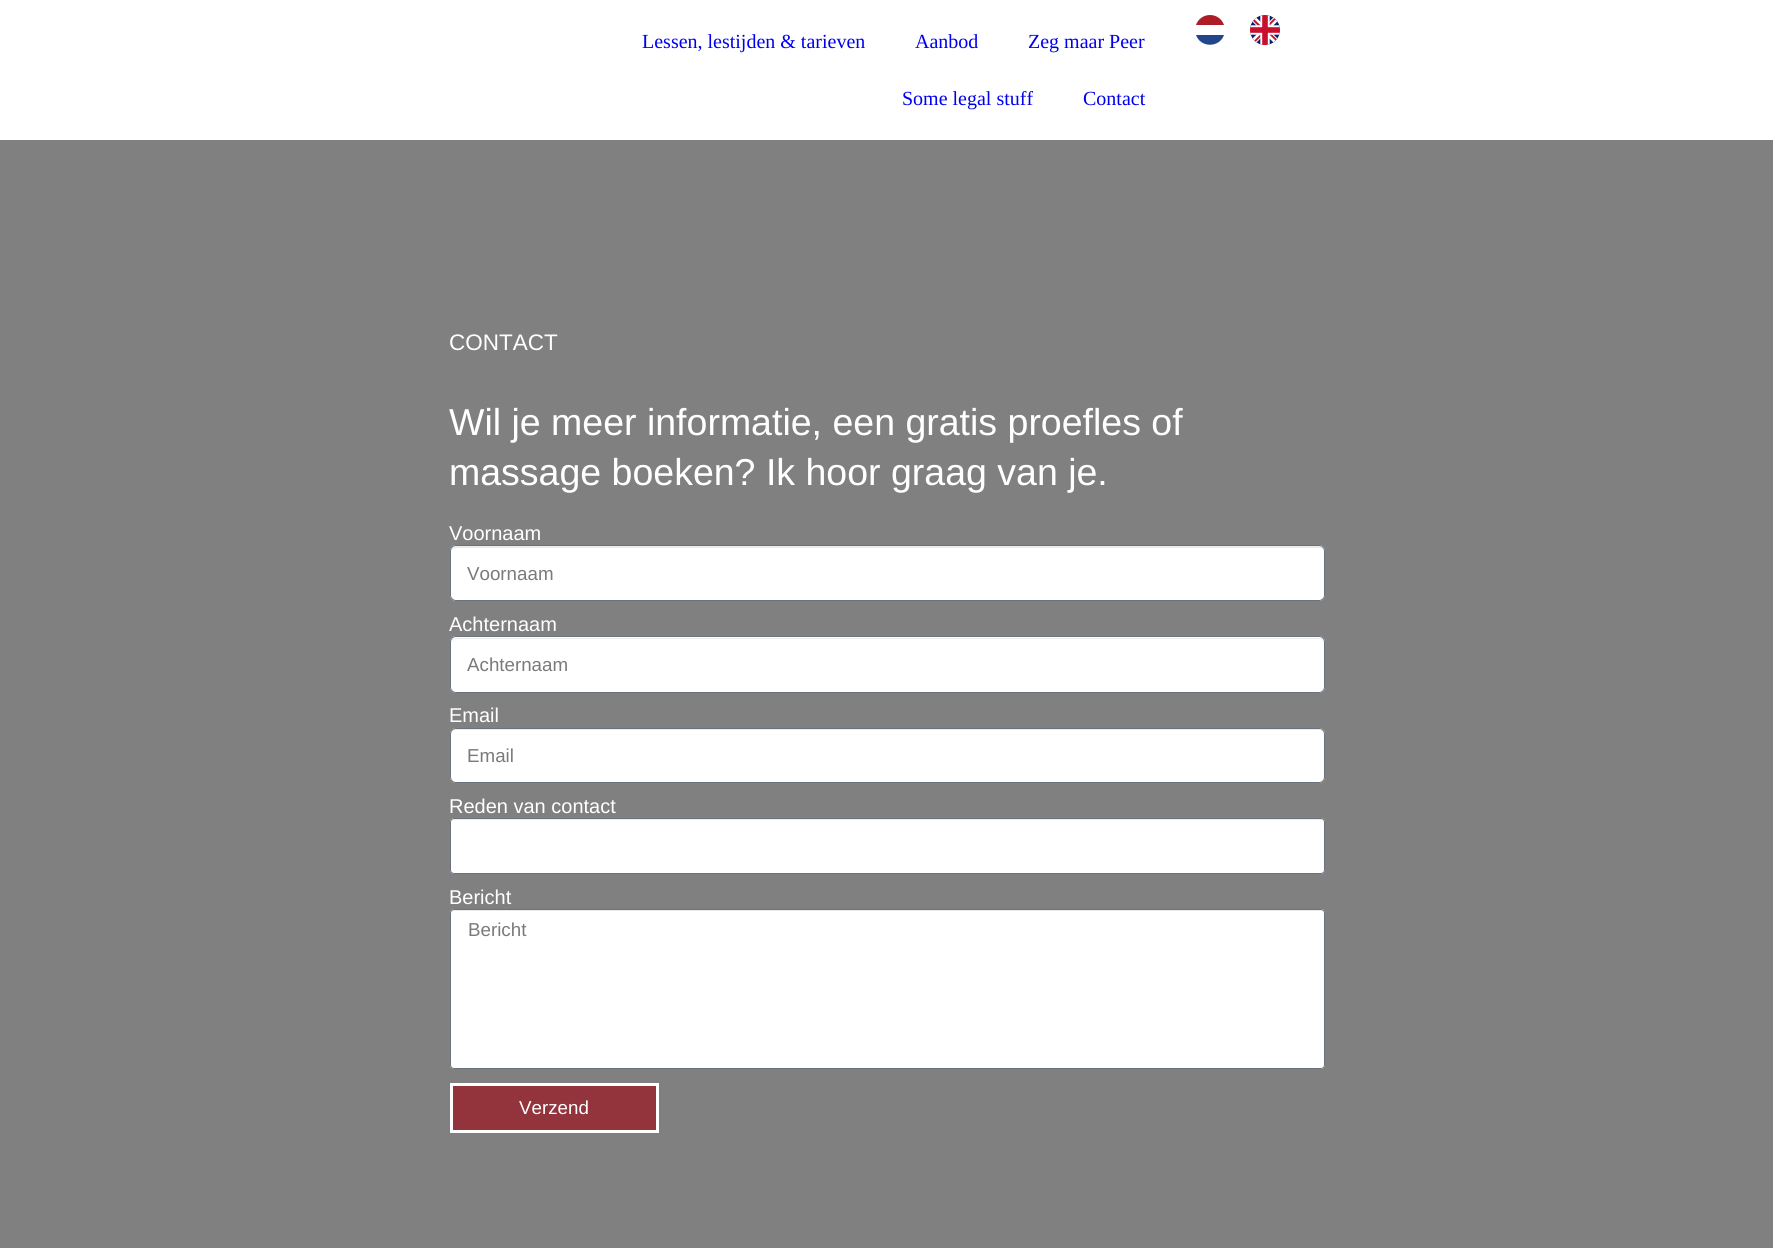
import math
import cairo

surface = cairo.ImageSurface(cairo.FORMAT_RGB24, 1773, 1248)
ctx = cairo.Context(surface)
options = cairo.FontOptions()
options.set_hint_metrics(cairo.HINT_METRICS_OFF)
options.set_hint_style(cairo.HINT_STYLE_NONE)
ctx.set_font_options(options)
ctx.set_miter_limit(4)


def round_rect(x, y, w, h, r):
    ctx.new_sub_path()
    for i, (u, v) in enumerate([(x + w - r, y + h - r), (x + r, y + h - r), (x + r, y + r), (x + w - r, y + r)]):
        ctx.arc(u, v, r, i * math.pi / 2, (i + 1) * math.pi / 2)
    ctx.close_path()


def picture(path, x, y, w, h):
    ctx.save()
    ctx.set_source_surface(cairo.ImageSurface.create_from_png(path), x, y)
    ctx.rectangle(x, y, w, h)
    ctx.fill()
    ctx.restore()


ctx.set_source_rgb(1, 1, 1)
ctx.paint()
ctx.set_source_rgb(0.682, 0.11, 0.157)
ctx.new_path()
ctx.move_to(1210, 15)
ctx.curve_to(1216.5, 15, 1222, 19, 1224, 25)
ctx.line_to(1196, 25)
ctx.curve_to(1198, 19, 1203.5, 15, 1210, 15)
ctx.close_path()
ctx.fill()
ctx.set_source_rgb(0.129, 0.275, 0.545)
ctx.new_path()
ctx.move_to(1224, 35)
ctx.curve_to(1219.5, 48, 1200.5, 48, 1196, 35)
ctx.close_path()
ctx.fill()
picture("img1.png", 1250, 15, 30, 30)
ctx.select_font_face("Liberation Serif")
ctx.set_font_size(20)
ctx.set_source_rgb(0, 0, 0.933)
ctx.move_to(642, 48)
ctx.show_text("Lessen, lestijden & tarieven")
ctx.move_to(915, 48)
ctx.show_text("Aanbod")
ctx.move_to(1028, 48)
ctx.show_text("Zeg maar Peer")
ctx.move_to(902, 105)
ctx.show_text("Some legal stuff")
ctx.move_to(1083, 105)
ctx.show_text("Contact")
ctx.set_source_rgb(0.502, 0.502, 0.502)
ctx.rectangle(0, 140, 1773, 1108)
ctx.fill()
ctx.select_font_face("Liberation Sans")
ctx.set_font_size(22.5)
ctx.set_source_rgb(1, 1, 1)
ctx.move_to(449, 350)
ctx.show_text("CONTACT")
ctx.set_font_size(37.5)
ctx.move_to(449, 435)
ctx.show_text("Wil je meer informatie, een gratis proefles of")
ctx.move_to(449, 485)
ctx.show_text("massage boeken? Ik hoor graag van je.")
ctx.set_font_size(20)
ctx.move_to(449, 540)
ctx.show_text("Voornaam")
round_rect(450, 545, 875, 56, 6)
ctx.fill()
ctx.set_source_rgb(0.922, 0.922, 0.922)
ctx.new_path()
ctx.move_to(456, 548)
ctx.line_to(1319, 548)
ctx.curve_to(1322, 548, 1324, 550, 1324, 552)
ctx.line_to(1324, 551)
ctx.curve_to(1324, 548, 1322, 546, 1319, 546)
ctx.line_to(456, 546)
ctx.curve_to(453, 546, 451, 548, 451, 551)
ctx.line_to(451, 552)
ctx.curve_to(451, 550, 453, 548, 456, 548)
ctx.close_path()
ctx.fill()
round_rect(450.5, 545.5, 874, 55, 5.5)
ctx.set_source_rgb(0.412, 0.447, 0.49)
ctx.set_line_width(1)
ctx.stroke()
ctx.set_font_size(18.75)
ctx.set_source_rgb(0.475, 0.478, 0.486)
ctx.move_to(467, 580)
ctx.show_text("Voornaam")
ctx.set_font_size(20)
ctx.set_source_rgb(1, 1, 1)
ctx.move_to(449, 631)
ctx.show_text("Achternaam")
round_rect(450, 636, 875, 57, 6)
ctx.fill()
ctx.set_source_rgb(0.922, 0.922, 0.922)
ctx.new_path()
ctx.move_to(456, 639)
ctx.line_to(1319, 639)
ctx.curve_to(1322, 639, 1324, 641, 1324, 644)
ctx.line_to(1324, 643)
ctx.curve_to(1324, 640, 1322, 638, 1319, 638)
ctx.line_to(456, 638)
ctx.curve_to(453, 638, 451, 640, 451, 643)
ctx.line_to(451, 644)
ctx.curve_to(451, 641, 453, 639, 456, 639)
ctx.close_path()
ctx.fill()
round_rect(450.5, 636.5, 874, 56, 5.5)
ctx.set_source_rgb(0.412, 0.447, 0.49)
ctx.stroke()
ctx.set_font_size(18.75)
ctx.set_source_rgb(0.475, 0.478, 0.486)
ctx.move_to(467, 671)
ctx.show_text("Achternaam")
ctx.set_font_size(20)
ctx.set_source_rgb(1, 1, 1)
ctx.move_to(449, 722)
ctx.show_text("Email")
round_rect(450, 728, 875, 55, 6)
ctx.fill()
ctx.set_source_rgb(0.922, 0.922, 0.922)
ctx.new_path()
ctx.move_to(456, 730)
ctx.line_to(1319, 730)
ctx.curve_to(1322, 730, 1324, 732, 1324, 735)
ctx.line_to(1324, 734)
ctx.curve_to(1324, 731, 1322, 729, 1319, 729)
ctx.line_to(456, 729)
ctx.curve_to(453, 729, 451, 731, 451, 734)
ctx.line_to(451, 735)
ctx.curve_to(451, 732, 453, 730, 456, 730)
ctx.close_path()
ctx.fill()
round_rect(450.5, 728.5, 874, 54, 5.5)
ctx.set_source_rgb(0.412, 0.447, 0.49)
ctx.stroke()
ctx.set_font_size(18.75)
ctx.set_source_rgb(0.475, 0.478, 0.486)
ctx.move_to(467, 762)
ctx.show_text("Email")
ctx.set_font_size(20)
ctx.set_source_rgb(1, 1, 1)
ctx.move_to(449, 813)
ctx.show_text("Reden van contact")
round_rect(450, 818, 875, 56, 4)
ctx.fill()
ctx.set_source_rgb(0.922, 0.922, 0.922)
ctx.new_path()
ctx.move_to(454, 820)
ctx.line_to(1321, 820)
ctx.curve_to(1323, 820, 1324, 821, 1324, 822)
ctx.curve_to(1324, 820, 1323, 819, 1322, 819)
ctx.line_to(454, 819)
ctx.curve_to(452, 819, 451, 820, 451, 822)
ctx.curve_to(451, 821, 452, 820, 454, 820)
ctx.close_path()
ctx.fill()
round_rect(450.5, 818.5, 874, 55, 3.5)
ctx.set_source_rgb(0.412, 0.447, 0.49)
ctx.stroke()
ctx.set_source_rgb(1, 1, 1)
ctx.move_to(449, 904)
ctx.show_text("Bericht")
round_rect(450, 909, 875, 160, 4)
ctx.fill()
ctx.set_source_rgb(0.922, 0.922, 0.922)
ctx.new_path()
ctx.move_to(454, 911)
ctx.line_to(1321, 911)
ctx.curve_to(1323, 911, 1324, 912, 1324, 914)
ctx.line_to(1324, 912)
ctx.curve_to(1324, 911, 1323, 910, 1322, 910)
ctx.line_to(454, 910)
ctx.curve_to(452, 910, 451, 911, 451, 912)
ctx.line_to(451, 914)
ctx.curve_to(451, 912, 452, 911, 454, 911)
ctx.close_path()
ctx.fill()
round_rect(450.5, 909.5, 874, 159, 3.5)
ctx.set_source_rgb(0.412, 0.447, 0.49)
ctx.stroke()
ctx.set_font_size(18.75)
ctx.set_source_rgb(0.475, 0.478, 0.486)
ctx.move_to(468, 936)
ctx.show_text("Bericht")
ctx.set_source_rgb(0.576, 0.204, 0.239)
ctx.rectangle(453, 1086, 203, 44)
ctx.fill()
ctx.rectangle(451.5, 1084.5, 206, 47)
ctx.set_source_rgb(1, 1, 1)
ctx.set_line_width(3)
ctx.stroke()
ctx.move_to(519, 1114)
ctx.show_text("Verzend")
surface.write_to_png("page.png")
